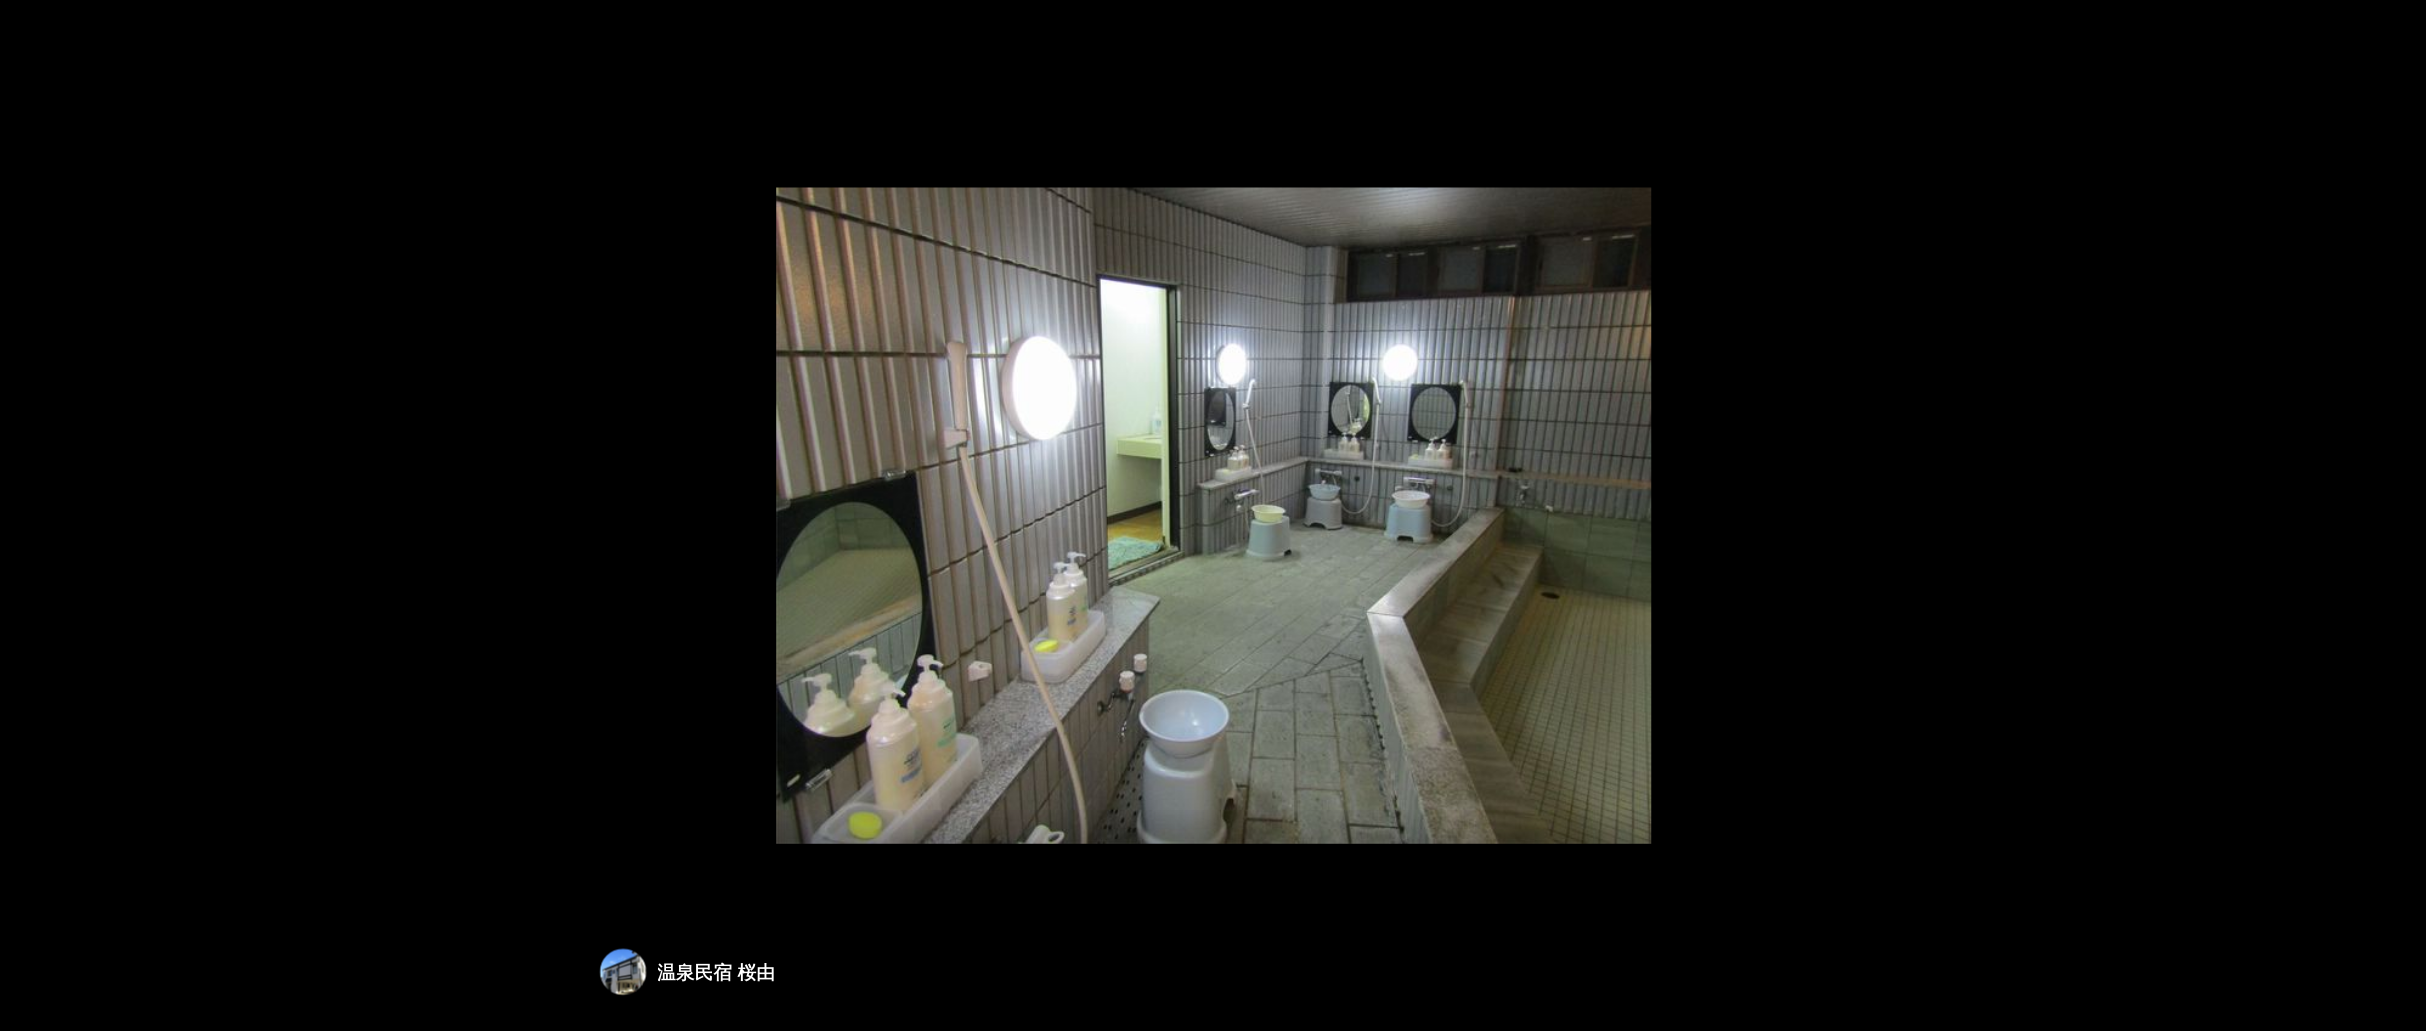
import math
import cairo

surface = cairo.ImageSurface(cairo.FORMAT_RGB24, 2426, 1031)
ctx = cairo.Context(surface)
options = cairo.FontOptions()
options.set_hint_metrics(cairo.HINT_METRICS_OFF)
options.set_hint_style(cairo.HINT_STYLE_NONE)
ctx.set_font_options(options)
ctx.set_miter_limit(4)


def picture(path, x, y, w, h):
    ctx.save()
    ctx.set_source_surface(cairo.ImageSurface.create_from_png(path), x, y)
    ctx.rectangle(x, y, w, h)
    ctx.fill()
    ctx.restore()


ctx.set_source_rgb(0, 0, 0)
ctx.paint()
picture("img1.png", 776, 187, 876, 657)
gradient = cairo.LinearGradient(1214, 806, 1214, 1031)
gradient.add_color_stop_rgba(0, 0, 0, 0, 0)
gradient.add_color_stop_rgba(0.37, 0, 0, 0, 0.4)
gradient.add_color_stop_rgba(1, 0, 0, 0, 0.4)
ctx.set_source(gradient)
ctx.rectangle(776, 810, 876, 34)
ctx.fill()
picture("img2.png", 599, 948, 48, 48)
ctx.save()
ctx.rectangle(658, 961, 1171, 22)
ctx.clip()
ctx.select_font_face("WenQuanYi Zen Hei", cairo.FONT_SLANT_NORMAL, cairo.FONT_WEIGHT_BOLD)
ctx.set_font_size(18.75)
ctx.set_source_rgb(1, 1, 1)
ctx.move_to(657, 979)
ctx.show_text("温泉民宿 桜由")
ctx.restore()
surface.write_to_png("page.png")
